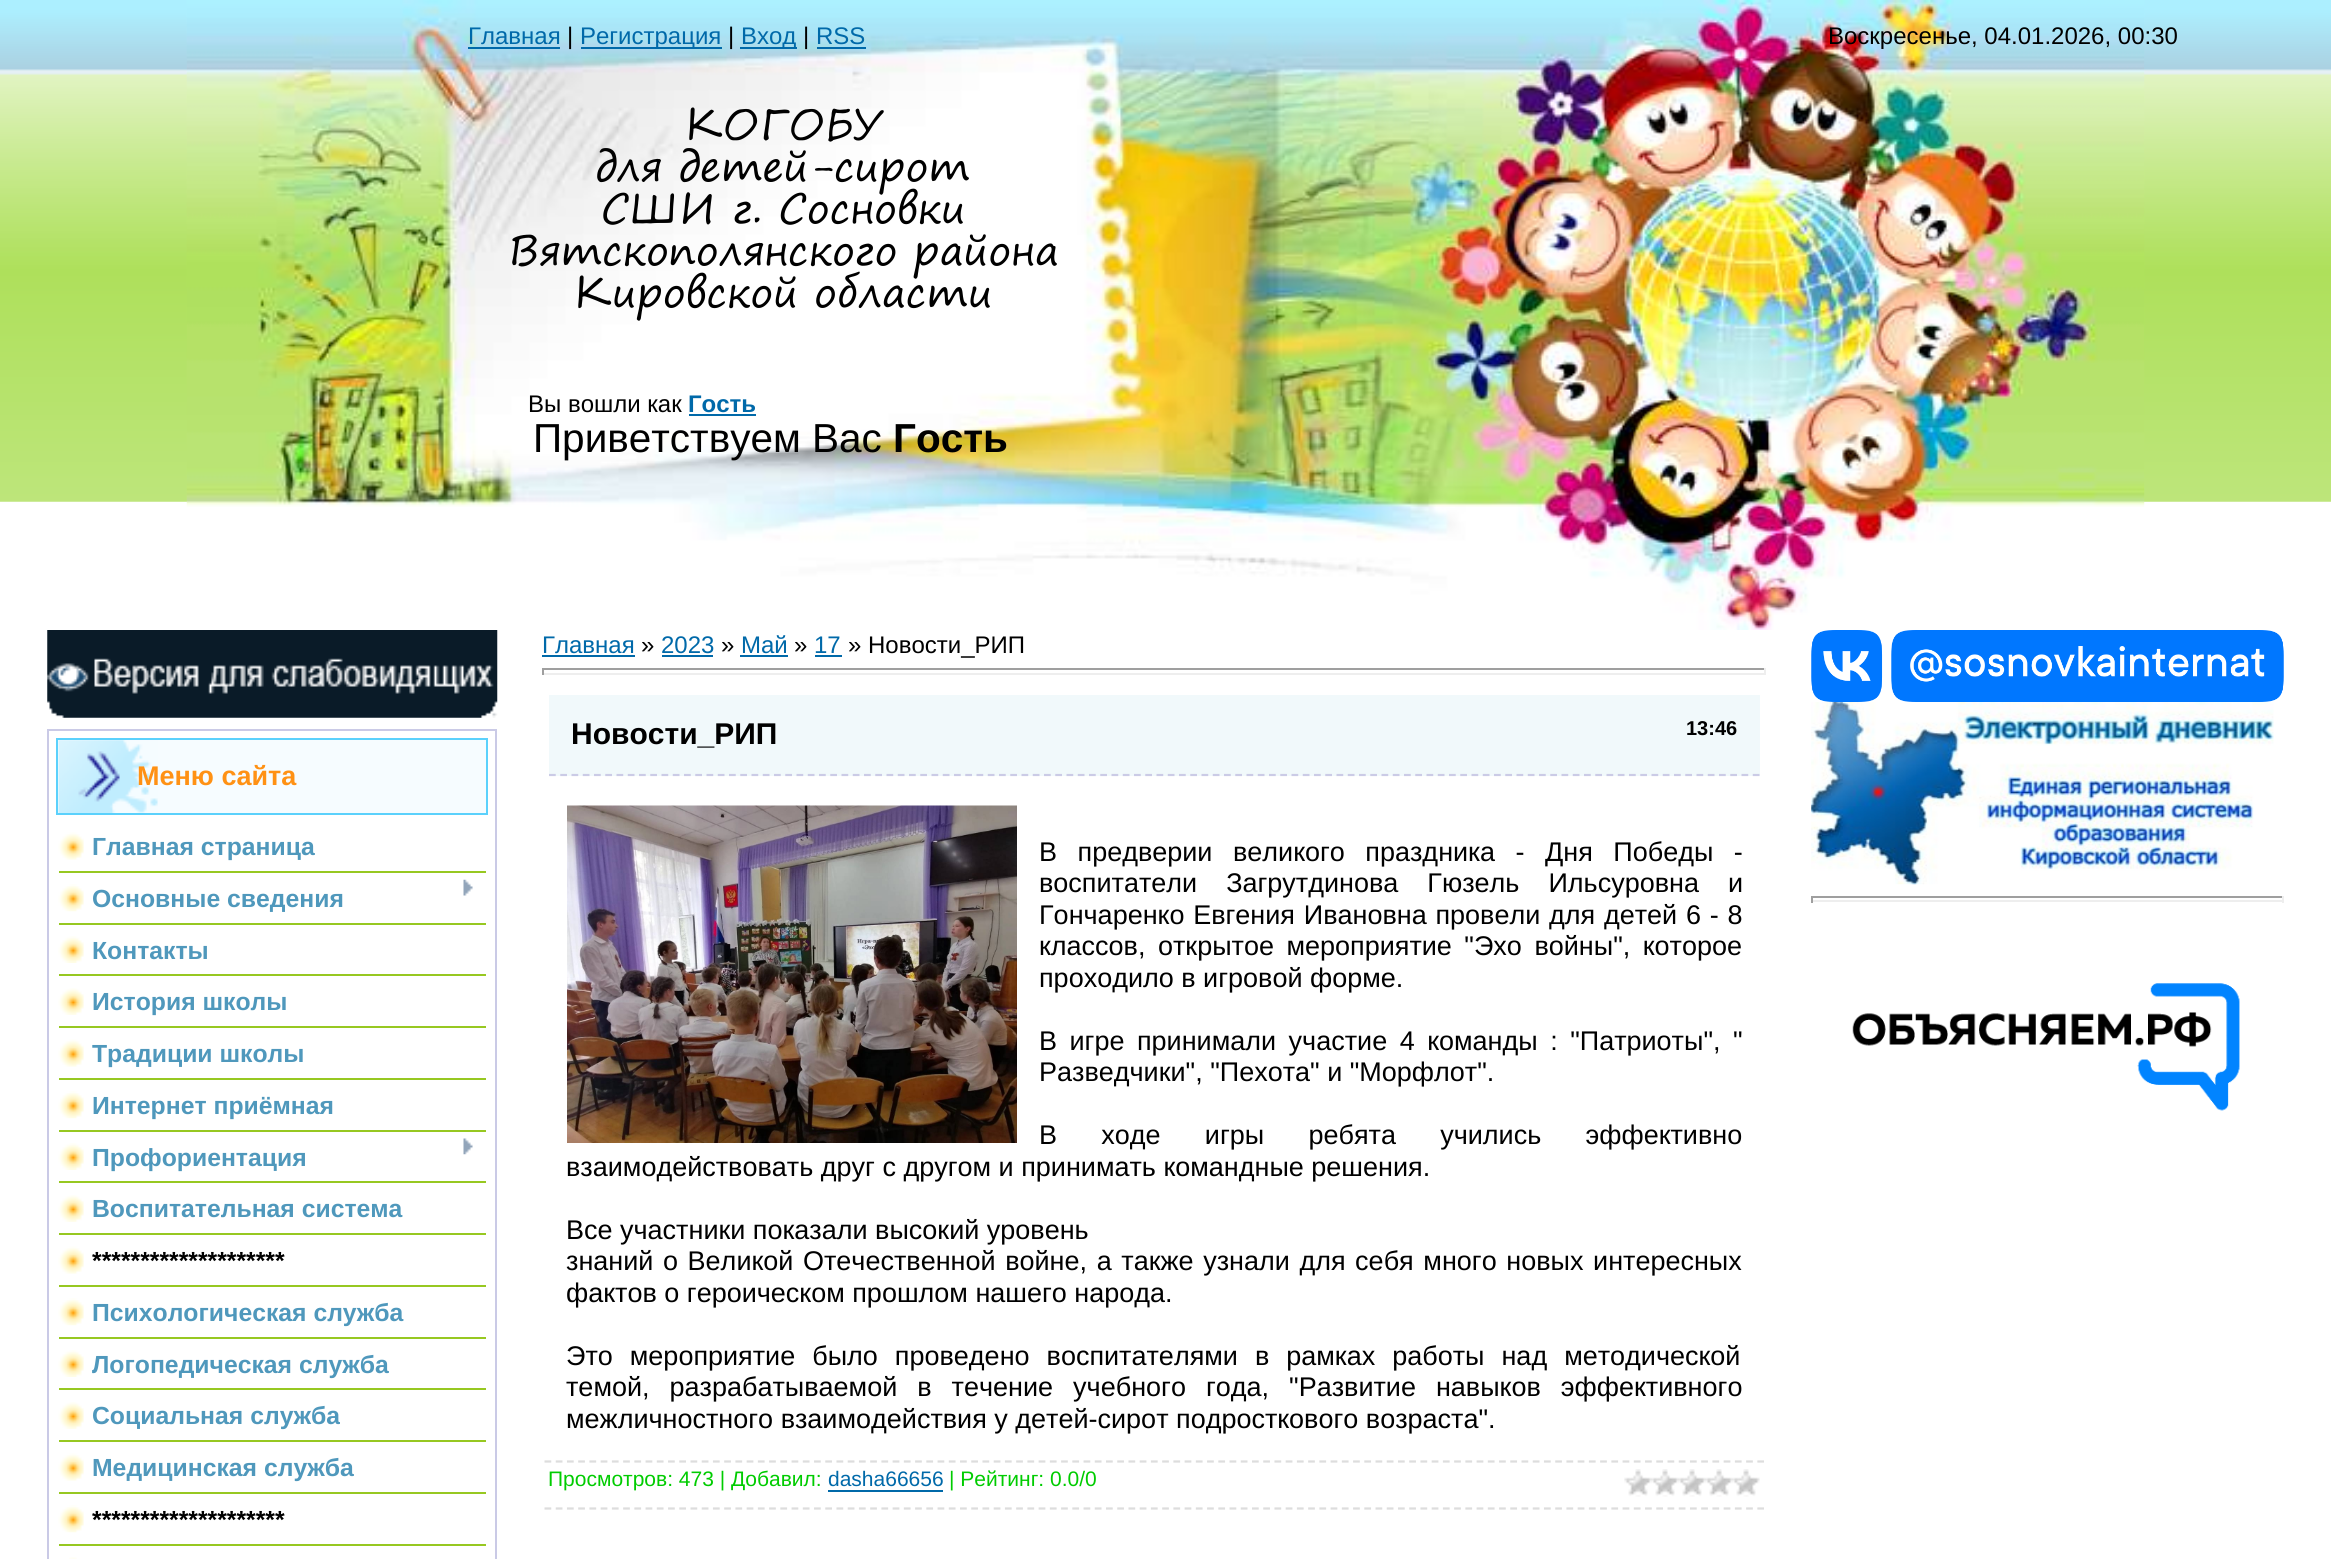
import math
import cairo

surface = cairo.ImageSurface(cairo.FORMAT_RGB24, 2331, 1559)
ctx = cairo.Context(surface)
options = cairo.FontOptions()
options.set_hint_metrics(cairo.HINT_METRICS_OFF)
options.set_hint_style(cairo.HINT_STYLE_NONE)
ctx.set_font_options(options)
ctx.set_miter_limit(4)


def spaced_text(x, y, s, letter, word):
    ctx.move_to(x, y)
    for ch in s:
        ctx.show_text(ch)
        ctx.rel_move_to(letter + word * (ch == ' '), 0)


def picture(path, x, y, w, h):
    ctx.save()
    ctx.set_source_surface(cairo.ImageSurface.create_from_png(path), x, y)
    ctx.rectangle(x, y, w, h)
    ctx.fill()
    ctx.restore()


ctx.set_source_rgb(1, 1, 1)
ctx.paint()
picture("img1.png", 0, 0, 2331, 502)
picture("img2.png", 186, 0, 1959, 630)
ctx.select_font_face("Liberation Sans")
ctx.set_font_size(24)
ctx.set_source_rgb(0, 0.412, 0.663)
ctx.move_to(468, 44)
ctx.show_text("Главная")
ctx.rectangle(468, 47, 92, 2)
ctx.fill()
ctx.set_source_rgb(0, 0, 0)
ctx.move_to(567, 44)
ctx.show_text("|")
ctx.set_source_rgb(0, 0.412, 0.663)
ctx.rectangle(581, 47, 141, 2)
ctx.fill()
ctx.move_to(580, 44)
ctx.show_text("Регистрация")
ctx.set_source_rgb(0, 0, 0)
ctx.move_to(728, 44)
ctx.show_text("|")
ctx.set_source_rgb(0, 0.412, 0.663)
ctx.rectangle(740, 47, 57, 2)
ctx.fill()
ctx.move_to(741, 44)
ctx.show_text("Вход")
ctx.set_source_rgb(0, 0, 0)
ctx.move_to(803, 44)
ctx.show_text("|")
ctx.set_source_rgb(0, 0.412, 0.663)
ctx.move_to(816, 44)
ctx.show_text("RSS")
ctx.rectangle(817, 47, 49, 2)
ctx.fill()
ctx.set_source_rgb(0, 0, 0)
ctx.move_to(1828, 44)
ctx.show_text("Воскресенье, 04.01.2026, 00:30")
ctx.select_font_face("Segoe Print")
ctx.set_font_size(40.5)
ctx.move_to(684, 139)
ctx.show_text("КОГОБУ")
ctx.move_to(595, 181)
ctx.show_text("для детей-сирот")
ctx.move_to(601, 223)
ctx.show_text("СШИ г. Сосновки")
ctx.move_to(508, 265)
ctx.show_text("Вятскополянского района")
ctx.move_to(573, 307)
ctx.show_text("Кировской области")
ctx.select_font_face("Liberation Sans")
ctx.set_font_size(24)
ctx.move_to(528, 412)
ctx.show_text("Вы вошли как")
ctx.select_font_face("Liberation Sans", cairo.FONT_SLANT_NORMAL, cairo.FONT_WEIGHT_BOLD)
ctx.set_source_rgb(0, 0.412, 0.663)
ctx.move_to(688, 412)
ctx.show_text("Гость")
ctx.rectangle(689, 414, 67, 2)
ctx.fill()
ctx.select_font_face("Liberation Sans")
ctx.set_font_size(40.5)
ctx.set_source_rgb(0, 0, 0)
ctx.move_to(533, 452)
ctx.show_text("Приветствуем Вас")
ctx.select_font_face("Liberation Sans", cairo.FONT_SLANT_NORMAL, cairo.FONT_WEIGHT_BOLD)
ctx.move_to(893, 452)
ctx.show_text("Гость")
picture("img3.png", 47, 630, 451, 88)
ctx.rectangle(48, 730, 448, 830)
ctx.set_source_rgb(0.792, 0.792, 0.902)
ctx.stroke()
ctx.set_source_rgb(0.961, 0.988, 1)
ctx.rectangle(58, 740, 428, 73)
ctx.fill()
picture("img4.png", 58, 740, 100, 73)
ctx.rectangle(57, 739, 430, 75)
ctx.set_source_rgb(0.357, 0.82, 0.988)
ctx.stroke()
ctx.set_font_size(27)
ctx.set_source_rgb(1, 0.569, 0.082)
ctx.move_to(137, 785)
ctx.show_text("Меню сайта")
picture("img5.png", 58, 832, 26, 28)
ctx.set_source_rgb(0.592, 0.784, 0.129)
ctx.rectangle(59, 871, 427, 2)
ctx.fill()
ctx.set_font_size(24.75)
ctx.set_source_rgb(0.31, 0.596, 0.737)
ctx.move_to(92, 855)
ctx.show_text("Главная страница")
picture("img6.png", 58, 884, 26, 28)
ctx.set_source_rgb(0.592, 0.784, 0.129)
ctx.rectangle(59, 923, 427, 2)
ctx.fill()
ctx.set_source_rgb(0.31, 0.596, 0.737)
ctx.move_to(92, 907)
ctx.show_text("Основные сведения")
picture("img7.png", 463, 879, 10, 17)
picture("img8.png", 58, 936, 26, 27)
ctx.set_source_rgb(0.592, 0.784, 0.129)
ctx.rectangle(59, 974, 427, 2)
ctx.fill()
ctx.set_source_rgb(0.31, 0.596, 0.737)
ctx.move_to(92, 959)
ctx.show_text("Контакты")
picture("img9.png", 58, 988, 26, 27)
ctx.set_source_rgb(0.592, 0.784, 0.129)
ctx.rectangle(59, 1026, 427, 2)
ctx.fill()
ctx.set_source_rgb(0.31, 0.596, 0.737)
ctx.move_to(92, 1010)
ctx.show_text("История школы")
picture("img10.png", 58, 1039, 26, 28)
ctx.set_source_rgb(0.592, 0.784, 0.129)
ctx.rectangle(59, 1078, 427, 2)
ctx.fill()
ctx.set_source_rgb(0.31, 0.596, 0.737)
ctx.move_to(92, 1062)
ctx.show_text("Традиции школы")
picture("img6.png", 58, 1091, 26, 28)
ctx.set_source_rgb(0.592, 0.784, 0.129)
ctx.rectangle(59, 1130, 427, 2)
ctx.fill()
ctx.set_source_rgb(0.31, 0.596, 0.737)
ctx.move_to(92, 1114)
ctx.show_text("Интернет приёмная")
picture("img11.png", 58, 1143, 26, 27)
ctx.set_source_rgb(0.592, 0.784, 0.129)
ctx.rectangle(59, 1181, 427, 2)
ctx.fill()
ctx.set_source_rgb(0.31, 0.596, 0.737)
ctx.move_to(92, 1166)
ctx.show_text("Профориентация")
picture("img12.png", 463, 1138, 10, 17)
picture("img9.png", 58, 1195, 26, 27)
ctx.set_source_rgb(0.592, 0.784, 0.129)
ctx.rectangle(59, 1233, 427, 2)
ctx.fill()
ctx.set_source_rgb(0.31, 0.596, 0.737)
ctx.move_to(92, 1217)
ctx.show_text("Воспитательная система")
picture("img10.png", 58, 1246, 26, 28)
ctx.set_source_rgb(0.592, 0.784, 0.129)
ctx.rectangle(59, 1285, 427, 2)
ctx.fill()
ctx.set_source_rgb(0, 0, 0)
ctx.move_to(92, 1269)
ctx.show_text("********************")
picture("img6.png", 58, 1298, 26, 28)
ctx.set_source_rgb(0.592, 0.784, 0.129)
ctx.rectangle(59, 1337, 427, 2)
ctx.fill()
ctx.set_source_rgb(0.31, 0.596, 0.737)
ctx.move_to(92, 1321)
ctx.show_text("Психологическая служба")
picture("img8.png", 58, 1350, 26, 27)
ctx.set_source_rgb(0.592, 0.784, 0.129)
ctx.rectangle(59, 1388, 427, 2)
ctx.fill()
ctx.set_source_rgb(0.31, 0.596, 0.737)
ctx.move_to(92, 1373)
ctx.show_text("Логопедическая служба")
picture("img9.png", 58, 1402, 26, 27)
ctx.set_source_rgb(0.592, 0.784, 0.129)
ctx.rectangle(59, 1440, 427, 2)
ctx.fill()
ctx.set_source_rgb(0.31, 0.596, 0.737)
ctx.move_to(92, 1424)
ctx.show_text("Социальная служба")
picture("img10.png", 58, 1453, 26, 28)
ctx.set_source_rgb(0.592, 0.784, 0.129)
ctx.rectangle(59, 1492, 427, 2)
ctx.fill()
ctx.set_source_rgb(0.31, 0.596, 0.737)
ctx.move_to(92, 1476)
ctx.show_text("Медицинская служба")
picture("img6.png", 58, 1505, 26, 28)
ctx.set_source_rgb(0.592, 0.784, 0.129)
ctx.rectangle(59, 1544, 427, 2)
ctx.fill()
ctx.set_source_rgb(0, 0, 0)
ctx.move_to(92, 1528)
ctx.show_text("********************")
picture("img13.png", 69, 1557, 8, 2)
ctx.select_font_face("Liberation Sans")
ctx.set_font_size(24)
ctx.set_source_rgb(0, 0.412, 0.663)
ctx.move_to(542, 653)
ctx.show_text("Главная")
ctx.rectangle(542, 655, 93, 2)
ctx.fill()
ctx.set_source_rgb(0, 0, 0)
ctx.move_to(641, 653)
ctx.show_text("»")
ctx.set_source_rgb(0, 0.412, 0.663)
ctx.move_to(661, 653)
ctx.show_text("2023")
ctx.rectangle(662, 655, 51, 2)
ctx.fill()
ctx.set_source_rgb(0, 0, 0)
ctx.move_to(721, 653)
ctx.show_text("»")
ctx.set_source_rgb(0, 0.412, 0.663)
ctx.move_to(741, 653)
ctx.show_text("Май")
ctx.rectangle(740, 655, 48, 2)
ctx.fill()
ctx.set_source_rgb(0, 0, 0)
ctx.move_to(794, 653)
ctx.show_text("»")
ctx.set_source_rgb(0, 0.412, 0.663)
ctx.move_to(814, 653)
ctx.show_text("17")
ctx.rectangle(815, 655, 27, 2)
ctx.fill()
ctx.set_source_rgb(0, 0, 0)
ctx.move_to(848, 653)
ctx.show_text("» Новости_РИП")
ctx.set_source_rgb(0.624, 0.624, 0.624)
ctx.rectangle(542, 668, 1224, 2)
ctx.fill()
ctx.set_source_rgb(0.933, 0.933, 0.933)
ctx.rectangle(1764, 668, 2, 7)
ctx.fill()
ctx.rectangle(542, 673, 1224, 2)
ctx.fill()
ctx.set_source_rgb(0.624, 0.624, 0.624)
ctx.rectangle(542, 668, 2, 7)
ctx.fill()
ctx.set_source_rgb(0.945, 0.973, 0.984)
ctx.rectangle(549, 695, 1211, 81)
ctx.fill()
ctx.new_path()
ctx.move_to(549, 775)
ctx.line_to(1759.5, 775)
ctx.set_source_rgb(0.796, 0.796, 0.902)
ctx.set_line_width(2.2)
ctx.set_dash([6.75, 4.5])
ctx.stroke()
ctx.select_font_face("Liberation Sans", cairo.FONT_SLANT_NORMAL, cairo.FONT_WEIGHT_BOLD)
ctx.set_font_size(30)
ctx.set_source_rgb(0, 0, 0)
ctx.move_to(571, 744)
ctx.show_text("Новости_РИП")
ctx.set_font_size(20)
ctx.move_to(1686, 735)
ctx.show_text("13:46")
picture("img14.png", 567, 805, 450, 338)
ctx.select_font_face("Liberation Sans")
ctx.set_font_size(27)
spaced_text(1039, 861, "В предверии великого праздника - Дня Победы -", 0, 13)
spaced_text(1039, 892, "воспитатели Загрутдинова Гюзель Ильсуровна и", 0, 21.5)
spaced_text(1039, 924, "Гончаренко Евгения Ивановна провели для детей 6 - 8", 0, 1.25)
spaced_text(1039, 955, "классов, открытое мероприятие \"Эхо войны\", которое", 0, 5)
ctx.move_to(1039, 987)
ctx.show_text("проходило в игровой форме.")
spaced_text(1039, 1050, "В игре принимали участие 4 команды : \"Патриоты\", \"", 0, 5)
ctx.move_to(1039, 1081)
ctx.show_text("Разведчики\", \"Пехота\" и \"Морфлот\".")
spaced_text(1039, 1144, "В ходе игры ребята учились эффективно", 0, 36.75)
ctx.move_to(566, 1176)
ctx.show_text("взаимодействовать друг с другом и принимать командные решения.")
ctx.move_to(566, 1239)
ctx.show_text("Все участники показали высокий уровень")
spaced_text(566, 1270, "знаний о Великой Отечественной войне, а также узнали для себя много новых интересных", 0, 2.1)
ctx.move_to(566, 1302)
ctx.show_text("фактов о героическом прошлом нашего народа.")
spaced_text(566, 1365, "Это мероприятие было проведено воспитателями в рамках работы над методической", 0, 9.5)
spaced_text(566, 1396, "темой, разрабатываемой в течение учебного года, \"Развитие навыков эффективного", 0, 12.5)
ctx.move_to(566, 1428)
ctx.show_text("межличностного взаимодействия у детей-сирот подросткового возраста\".")
ctx.new_path()
ctx.move_to(544.5, 1461.5)
ctx.line_to(1764, 1461.5)
ctx.set_source_rgb(0.867, 0.867, 0.867)
ctx.set_dash([6.75, 4.48])
ctx.stroke()
ctx.new_path()
ctx.move_to(544.5, 1508.5)
ctx.line_to(1764, 1508.5)
ctx.stroke()
ctx.set_font_size(21)
ctx.set_source_rgb(0, 0.8, 0)
ctx.move_to(548, 1486)
ctx.show_text("Просмотров: 473 | Добавил:")
ctx.set_source_rgb(0, 0.412, 0.663)
ctx.move_to(828, 1486)
ctx.show_text("dasha66656")
ctx.rectangle(828, 1490, 115, 2)
ctx.fill()
ctx.set_source_rgb(0, 0.8, 0)
ctx.move_to(949, 1486)
ctx.show_text("| Рейтинг: 0.0/0")
picture("img15.png", 1624, 1469, 136, 28)
picture("img16.png", 1811, 630, 473, 72)
picture("img17.png", 1811, 702, 463, 183)
ctx.set_source_rgb(0.624, 0.624, 0.624)
ctx.rectangle(1811, 896, 473, 2)
ctx.fill()
ctx.set_source_rgb(0.933, 0.933, 0.933)
ctx.rectangle(2282, 896, 2, 7)
ctx.fill()
ctx.rectangle(1811, 900, 473, 2)
ctx.fill()
ctx.set_source_rgb(0.624, 0.624, 0.624)
ctx.rectangle(1811, 896, 2, 7)
ctx.fill()
picture("img18.png", 1852, 983, 388, 128)
surface.write_to_png("page.png")
